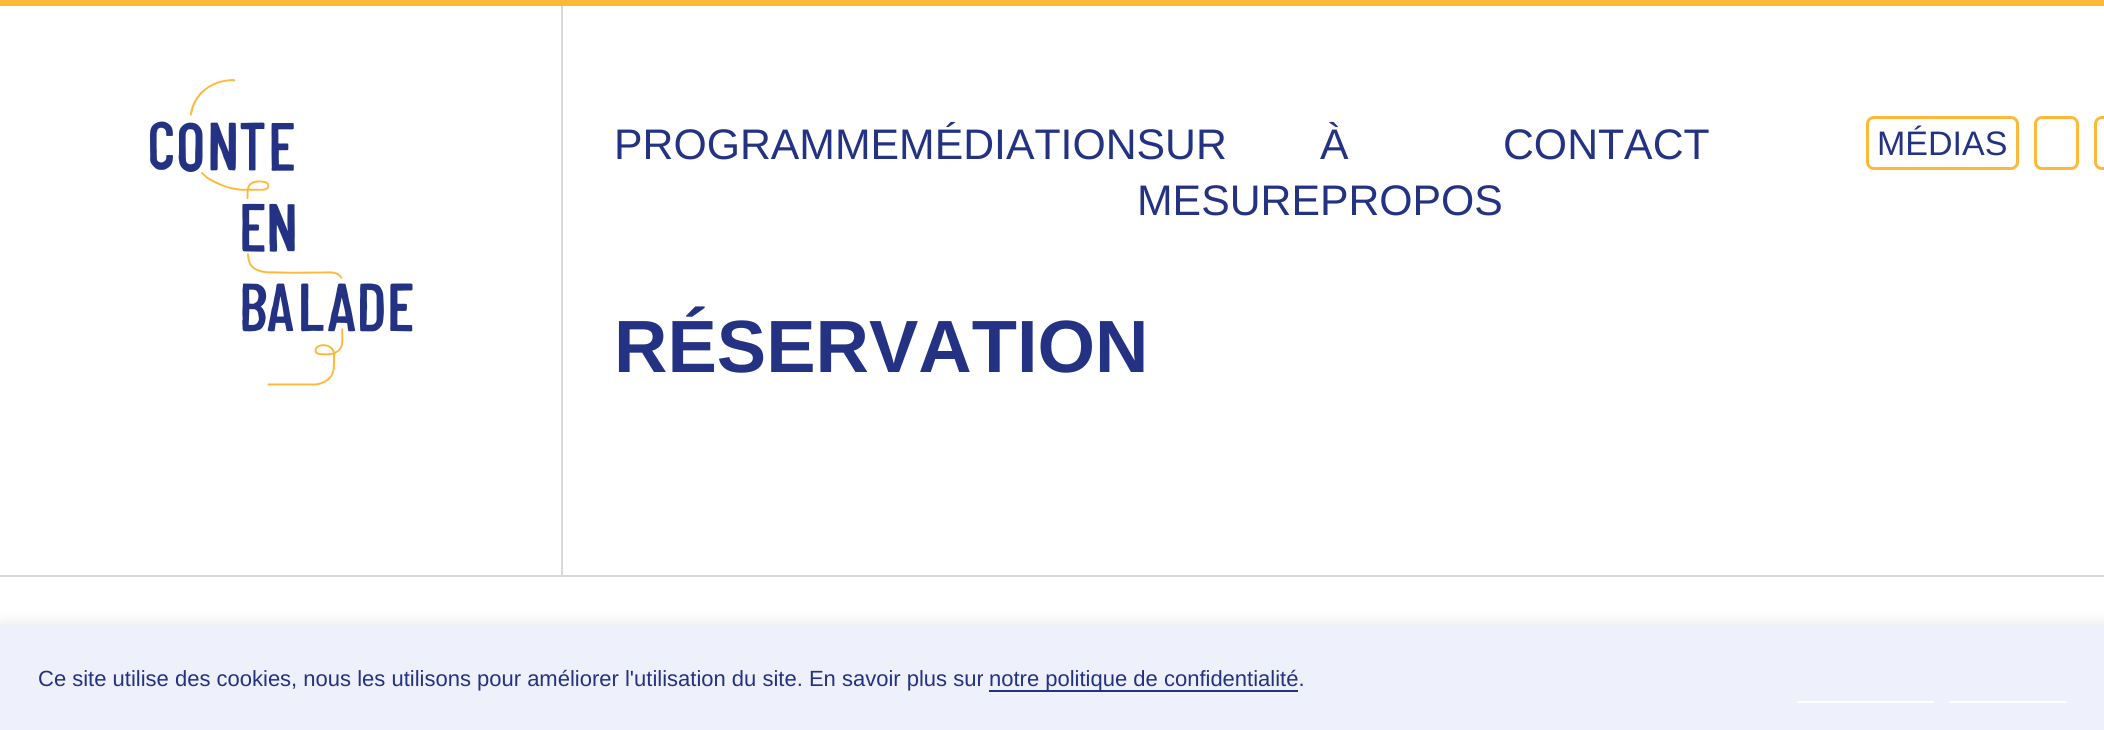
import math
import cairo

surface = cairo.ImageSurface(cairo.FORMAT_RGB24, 2104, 730)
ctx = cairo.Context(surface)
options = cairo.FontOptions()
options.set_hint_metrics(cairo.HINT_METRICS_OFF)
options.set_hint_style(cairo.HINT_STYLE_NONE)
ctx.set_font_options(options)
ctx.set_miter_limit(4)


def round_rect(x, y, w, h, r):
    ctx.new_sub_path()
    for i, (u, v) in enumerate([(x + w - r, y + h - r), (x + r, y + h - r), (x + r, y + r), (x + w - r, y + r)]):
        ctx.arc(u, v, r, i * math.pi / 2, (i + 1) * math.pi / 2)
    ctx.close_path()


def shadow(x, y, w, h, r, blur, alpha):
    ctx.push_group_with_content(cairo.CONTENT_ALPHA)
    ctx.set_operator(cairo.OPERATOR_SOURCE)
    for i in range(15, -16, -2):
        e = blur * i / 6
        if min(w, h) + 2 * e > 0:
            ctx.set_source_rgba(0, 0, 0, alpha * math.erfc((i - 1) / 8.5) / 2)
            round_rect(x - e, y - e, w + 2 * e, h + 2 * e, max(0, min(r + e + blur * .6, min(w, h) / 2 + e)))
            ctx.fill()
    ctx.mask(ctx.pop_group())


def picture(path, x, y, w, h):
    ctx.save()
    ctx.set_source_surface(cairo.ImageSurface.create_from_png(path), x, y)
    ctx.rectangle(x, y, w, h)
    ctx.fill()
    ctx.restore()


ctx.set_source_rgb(1, 1, 1)
ctx.paint()
ctx.set_source_rgb(1, 0.722, 0.22)
ctx.rectangle(0, 0, 2104, 6)
ctx.fill()
ctx.set_source_rgb(0.847, 0.847, 0.847)
ctx.rectangle(561, 6, 2, 569)
ctx.fill()
picture("img1.png", 150, 79, 263, 307)
ctx.select_font_face("Liberation Sans")
ctx.set_font_size(42.75)
ctx.set_source_rgb(0.137, 0.196, 0.51)
ctx.move_to(614, 159)
ctx.show_text("PROGRAMMEMÉDIATIONSUR")
ctx.move_to(1320, 159)
ctx.show_text("À")
ctx.move_to(1503, 159)
ctx.show_text("CONTACT")
ctx.move_to(1137, 215)
ctx.show_text("MESUREPROPOS")
round_rect(1867.5, 117.5, 150, 51, 6.5)
ctx.set_source_rgb(1, 0.722, 0.22)
ctx.set_line_width(3)
ctx.stroke()
ctx.set_font_size(34)
ctx.set_source_rgb(0.137, 0.196, 0.51)
ctx.move_to(1877, 155)
ctx.show_text("MÉDIAS")
round_rect(2035.5, 117.5, 42, 51, 6.5)
ctx.set_source_rgb(1, 0.722, 0.22)
ctx.stroke()
round_rect(2095.5, 117.5, 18, 51, 6.5)
ctx.stroke()
ctx.select_font_face("Liberation Sans", cairo.FONT_SLANT_NORMAL, cairo.FONT_WEIGHT_BOLD)
ctx.set_font_size(74)
ctx.set_source_rgb(0.137, 0.196, 0.51)
ctx.move_to(614, 372)
ctx.show_text("RÉSERVATION")
ctx.set_source_rgb(0.847, 0.847, 0.847)
ctx.rectangle(0, 575, 2104, 2)
ctx.fill()
ctx.set_source_rgb(0.675, 0.671, 0.671)
shadow(0, 624, 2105, 105, 0, 7.5, 0.3)
ctx.set_source_rgb(0.933, 0.941, 0.984)
ctx.rectangle(0, 626, 2104, 104)
ctx.fill()
ctx.select_font_face("Liberation Sans")
ctx.set_font_size(22)
ctx.set_source_rgb(0.137, 0.196, 0.51)
ctx.move_to(38, 686)
ctx.show_text("Ce site utilise des cookies, nous les utilisons pour améliorer l'utilisation du site. En savoir plus sur")
ctx.rectangle(989, 690, 309, 2)
ctx.fill()
ctx.move_to(989, 686)
ctx.show_text("notre politique de confidentialité.")
ctx.set_source_rgb(1, 1, 1)
ctx.rectangle(1797, 701, 137, 2)
ctx.fill()
ctx.rectangle(1949, 701, 118, 2)
ctx.fill()
surface.write_to_png("page.png")
